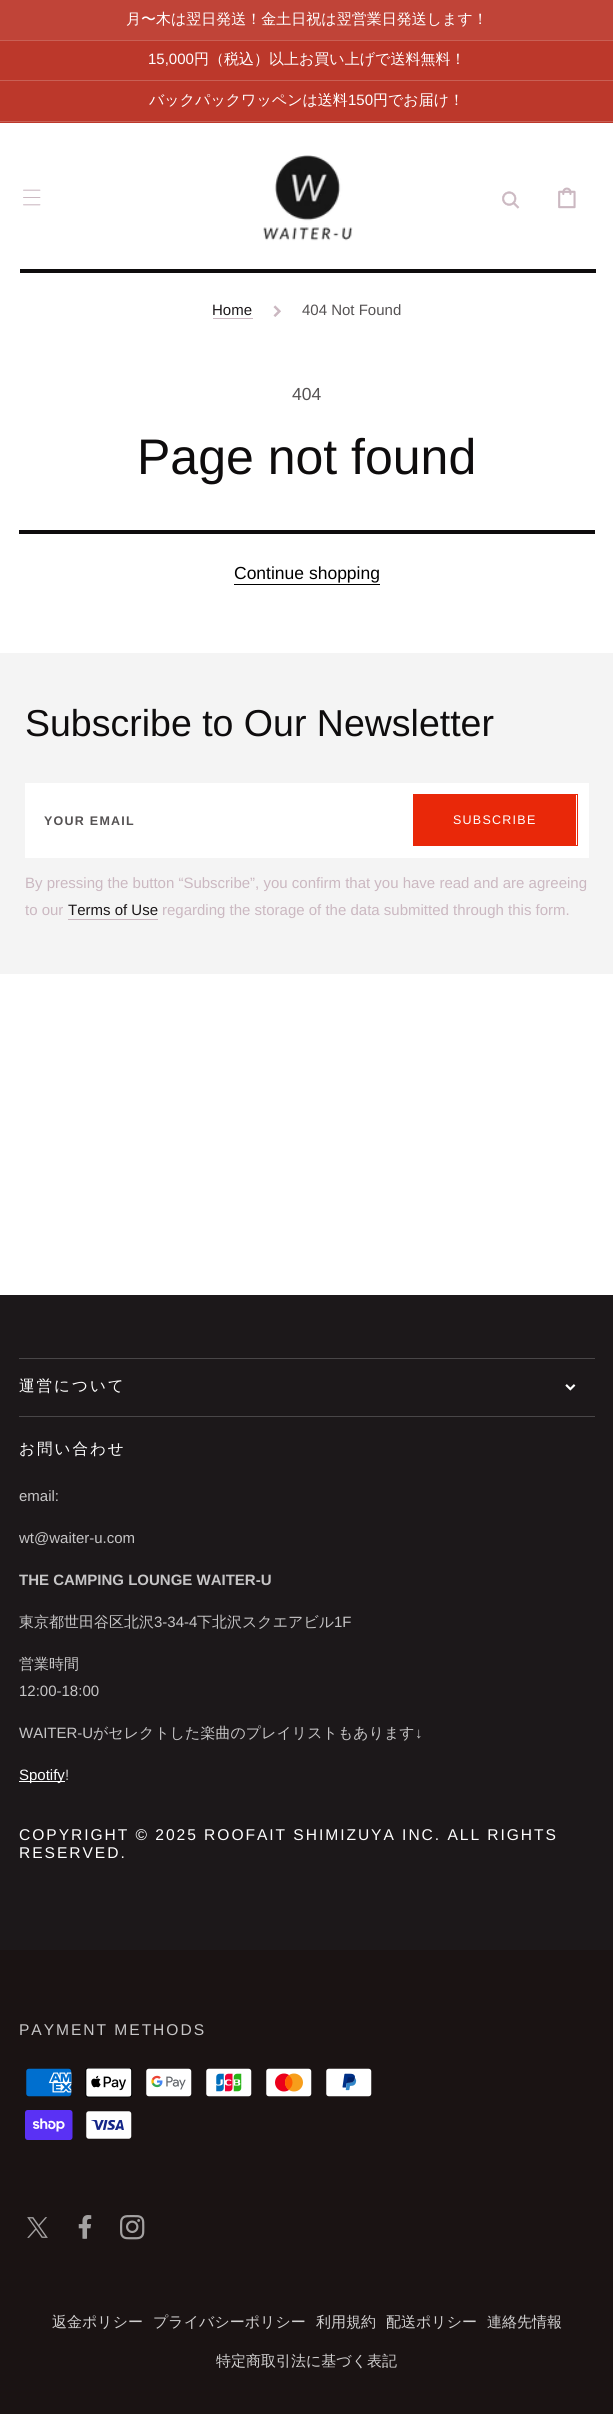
import math
import cairo

surface = cairo.ImageSurface(cairo.FORMAT_RGB24, 613, 2414)
ctx = cairo.Context(surface)
options = cairo.FontOptions()
options.set_hint_metrics(cairo.HINT_METRICS_OFF)
options.set_hint_style(cairo.HINT_STYLE_NONE)
ctx.set_font_options(options)
ctx.set_miter_limit(4)


def spaced_text(x, y, s, letter, word):
    ctx.move_to(x, y)
    for ch in s:
        ctx.show_text(ch)
        ctx.rel_move_to(letter + word * (ch == ' '), 0)


def picture(path, x, y, w, h):
    ctx.save()
    ctx.set_source_surface(cairo.ImageSurface.create_from_png(path), x, y)
    ctx.rectangle(x, y, w, h)
    ctx.fill()
    ctx.restore()


ctx.set_source_rgb(1, 1, 1)
ctx.paint()
ctx.set_source_rgb(0.788, 0.376, 0.333)
ctx.rectangle(0, 40, 613, 1)
ctx.fill()
ctx.set_source_rgb(0.753, 0.267, 0.22)
ctx.rectangle(0, 0, 613, 40)
ctx.fill()
ctx.select_font_face("WenQuanYi Zen Hei Medium")
ctx.set_font_size(15)
ctx.set_source_rgb(1, 1, 1)
ctx.move_to(126, 24)
ctx.show_text("月〜木は翌日発送！金土日祝は翌営業日発送します！")
ctx.set_source_rgb(0.737, 0.22, 0.169)
ctx.rectangle(0, 41, 613, 39)
ctx.fill()
ctx.set_source_rgb(0.788, 0.376, 0.333)
ctx.rectangle(0, 80, 613, 1)
ctx.fill()
ctx.select_font_face("Liberation Sans")
ctx.set_source_rgb(1, 1, 1)
ctx.move_to(148, 64)
ctx.show_text("15,000")
ctx.select_font_face("WenQuanYi Zen Hei Medium")
ctx.move_to(194, 64)
ctx.show_text("円（税込）以上お買い上げで送料無料！")
ctx.set_source_rgb(0.737, 0.22, 0.169)
ctx.rectangle(0, 81, 613, 42)
ctx.fill()
ctx.set_source_rgb(0.788, 0.376, 0.333)
ctx.rectangle(0, 121, 613, 1)
ctx.fill()
ctx.set_source_rgb(1, 1, 1)
ctx.move_to(149, 105)
ctx.show_text("バックパックワッペンは送料")
ctx.select_font_face("Liberation Sans")
ctx.move_to(348, 105)
ctx.show_text("150")
ctx.select_font_face("WenQuanYi Zen Hei Medium")
ctx.move_to(373, 105)
ctx.show_text("円でお届け！")
picture("img1.png", 23, 189, 18, 17)
picture("img2.png", 263, 155, 90, 86)
picture("img3.png", 502, 191, 18, 18)
picture("img4.png", 558, 187, 18, 22)
ctx.set_source_rgb(0.055, 0.047, 0.051)
ctx.rectangle(20, 269, 576, 4)
ctx.fill()
ctx.select_font_face("Liberation Sans")
ctx.set_source_rgb(0.11, 0.094, 0.102)
ctx.move_to(212, 315)
ctx.show_text("Home")
ctx.set_source_rgb(0.796, 0.722, 0.757)
ctx.rectangle(213, 318, 40, 1)
ctx.fill()
picture("img5.png", 273, 305, 8, 12)
ctx.set_source_rgb(0.333, 0.322, 0.325)
ctx.move_to(302, 315)
ctx.show_text("404 Not Found")
ctx.set_source_rgb(0.055, 0.047, 0.051)
ctx.rectangle(19, 530, 576, 4)
ctx.fill()
ctx.set_font_size(17.5)
ctx.set_source_rgb(0.333, 0.322, 0.325)
ctx.move_to(292, 400)
ctx.show_text("404")
ctx.set_font_size(50)
ctx.set_source_rgb(0.055, 0.047, 0.051)
ctx.move_to(137, 474)
ctx.show_text("Page not found")
ctx.set_font_size(17.5)
ctx.set_source_rgb(0, 0, 0)
ctx.move_to(234, 579)
ctx.show_text("Continue shopping")
ctx.rectangle(234, 584, 146, 1)
ctx.fill()
ctx.set_source_rgb(0.957, 0.957, 0.957)
ctx.rectangle(0, 653, 613, 321)
ctx.fill()
ctx.set_font_size(37.5)
ctx.set_source_rgb(0.055, 0.047, 0.051)
ctx.move_to(25, 736)
ctx.show_text("Subscribe to Our Newsletter")
ctx.set_source_rgb(1, 1, 1)
ctx.rectangle(25, 783, 564, 75)
ctx.fill()
ctx.select_font_face("Liberation Sans", cairo.FONT_SLANT_NORMAL, cairo.FONT_WEIGHT_BOLD)
ctx.set_font_size(12.5)
ctx.set_source_rgb(0.333, 0.322, 0.325)
spaced_text(44, 825, "YOUR EMAIL", 1.25, 0)
ctx.rectangle(413.5, 794.5, 164, 51)
ctx.set_source_rgb(0.914, 0.157, 0.039)
ctx.set_line_width(1)
ctx.stroke()
ctx.rectangle(414, 795, 162, 50)
ctx.fill()
ctx.select_font_face("Liberation Sans")
ctx.set_source_rgb(1, 1, 1)
spaced_text(453, 824, "SUBSCRIBE", 1.25, 0)
ctx.set_font_size(15)
ctx.set_source_rgb(0.796, 0.722, 0.757)
ctx.move_to(25, 888)
ctx.show_text("By pressing the button “Subscribe”, you confirm that you have read and are agreeing")
ctx.move_to(25, 915)
ctx.show_text("to our")
ctx.set_source_rgb(0.11, 0.094, 0.102)
ctx.move_to(68, 915)
ctx.show_text("Terms of Use")
ctx.set_source_rgb(0.796, 0.722, 0.757)
ctx.rectangle(68, 919, 90, 1)
ctx.fill()
ctx.move_to(162, 915)
ctx.show_text("regarding the storage of the data submitted through this form.")
ctx.set_source_rgb(0.11, 0.094, 0.102)
ctx.rectangle(0, 1295, 613, 655)
ctx.fill()
ctx.set_source_rgb(0.286, 0.275, 0.282)
ctx.rectangle(19, 1358, 576, 1)
ctx.fill()
ctx.rectangle(19, 1416, 576, 1)
ctx.fill()
ctx.select_font_face("WenQuanYi Zen Hei Medium")
ctx.set_font_size(15.6)
ctx.set_source_rgb(1, 1, 1)
spaced_text(19, 1391, "運営について", 1.95, 0)
picture("img6.png", 565, 1384, 11, 7)
spaced_text(19, 1454, "お問い合わせ", 1.95, 0)
ctx.select_font_face("Liberation Sans")
ctx.set_font_size(15)
ctx.set_source_rgb(0.776, 0.773, 0.776)
ctx.move_to(19, 1501)
ctx.show_text("email:")
ctx.move_to(19, 1543)
ctx.show_text("wt@waiter-u.com")
ctx.select_font_face("Liberation Sans", cairo.FONT_SLANT_NORMAL, cairo.FONT_WEIGHT_BOLD)
ctx.move_to(19, 1585)
ctx.show_text("THE CAMPING LOUNGE WAITER-U")
ctx.select_font_face("WenQuanYi Zen Hei Medium")
ctx.move_to(19, 1627)
ctx.show_text("東京都世田谷区北沢")
ctx.select_font_face("Liberation Sans")
ctx.move_to(154, 1627)
ctx.show_text("3-34-4")
ctx.select_font_face("WenQuanYi Zen Hei Medium")
ctx.move_to(197, 1627)
ctx.show_text("下北沢スクエアビル")
ctx.select_font_face("Liberation Sans")
ctx.move_to(334, 1627)
ctx.show_text("1F")
ctx.select_font_face("WenQuanYi Zen Hei Medium")
ctx.move_to(19, 1669)
ctx.show_text("営業時間")
ctx.select_font_face("Liberation Sans")
ctx.move_to(19, 1696)
ctx.show_text("12:00-18:00")
ctx.move_to(19, 1738)
ctx.show_text("WAITER-U")
ctx.select_font_face("WenQuanYi Zen Hei Medium")
ctx.move_to(93, 1738)
ctx.show_text("がセレクトした楽曲のプレイリストもあります")
ctx.select_font_face("Liberation Sans")
ctx.move_to(415, 1738)
ctx.show_text("↓")
ctx.set_source_rgb(1, 1, 1)
ctx.rectangle(19, 1781, 46, 1)
ctx.fill()
ctx.move_to(19, 1780)
ctx.show_text("Spotify")
ctx.set_source_rgb(0.776, 0.773, 0.776)
ctx.move_to(65, 1780)
ctx.show_text("!")
ctx.set_font_size(15.6)
ctx.set_source_rgb(1, 1, 1)
spaced_text(19, 1840, "COPYRIGHT © 2025 ROOFAIT SHIMIZUYA INC. ALL RIGHTS", 1.95, 0)
spaced_text(19, 1858, "RESERVED.", 1.95, 0)
ctx.set_source_rgb(0.102, 0.075, 0.075)
ctx.rectangle(0, 1950, 613, 464)
ctx.fill()
ctx.set_source_rgb(0.776, 0.773, 0.776)
spaced_text(19, 2035, "PAYMENT METHODS", 1.95, 0)
picture("img7.png", 26, 2068, 46, 29)
picture("img8.png", 85, 2068, 48, 30)
picture("img9.png", 146, 2068, 46, 29)
picture("img10.png", 206, 2068, 46, 29)
picture("img11.png", 266, 2068, 46, 29)
picture("img12.png", 326, 2068, 46, 29)
picture("img13.png", 25, 2110, 48, 30)
picture("img14.png", 86, 2111, 46, 28)
picture("img15.png", 27, 2217, 21, 21)
picture("img16.png", 78, 2215, 14, 24)
picture("img17.png", 120, 2215, 25, 25)
ctx.select_font_face("WenQuanYi Zen Hei Medium")
ctx.set_font_size(15)
ctx.set_source_rgb(0.82, 0.816, 0.816)
ctx.move_to(52, 2327)
ctx.show_text("返金ポリシー")
ctx.move_to(153, 2327)
ctx.show_text("プライバシーポリシー")
ctx.move_to(316, 2327)
ctx.show_text("利用規約")
ctx.move_to(386, 2327)
ctx.show_text("配送ポリシー")
ctx.move_to(487, 2327)
ctx.show_text("連絡先情報")
ctx.move_to(216, 2366)
ctx.show_text("特定商取引法に基づく表記")
surface.write_to_png("page.png")
